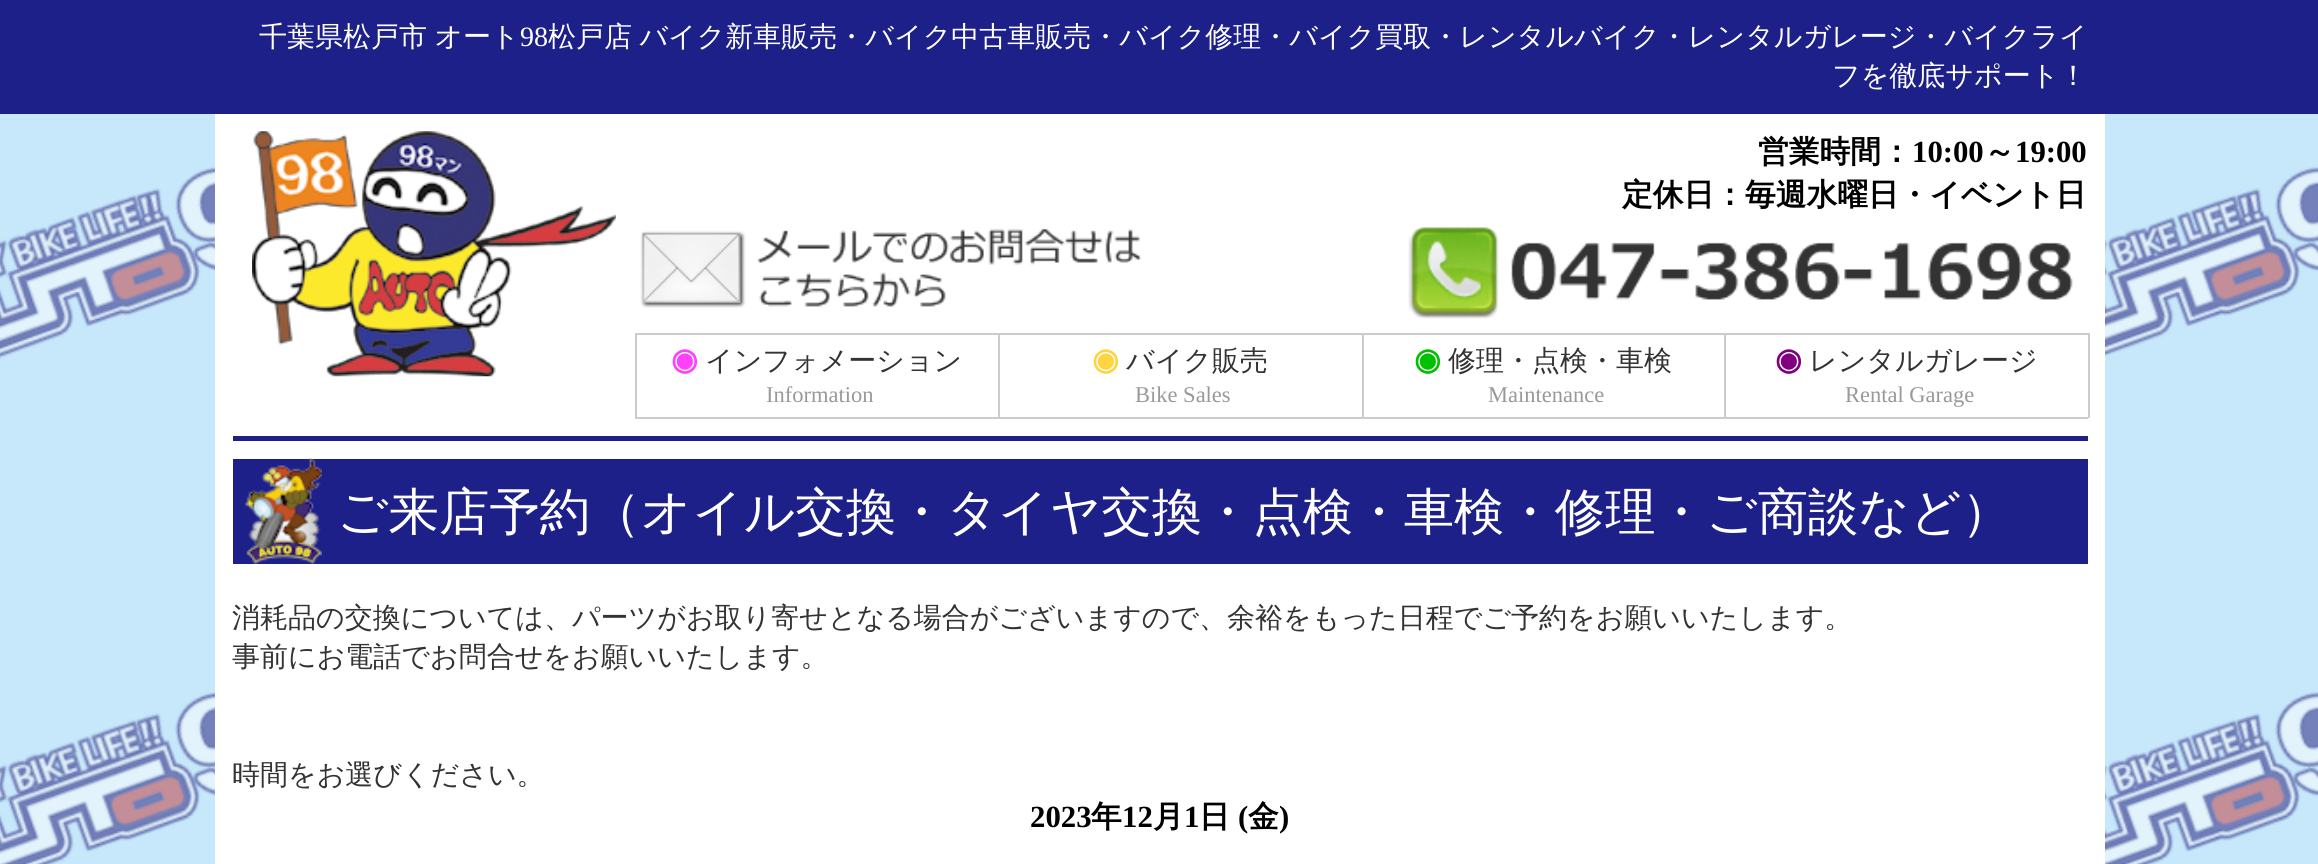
import math
import cairo

surface = cairo.ImageSurface(cairo.FORMAT_RGB24, 2318, 864)
ctx = cairo.Context(surface)
options = cairo.FontOptions()
options.set_hint_metrics(cairo.HINT_METRICS_OFF)
options.set_hint_style(cairo.HINT_STYLE_NONE)
ctx.set_font_options(options)
ctx.set_miter_limit(4)


def spaced_text(x, y, s, letter, word):
    ctx.move_to(x, y)
    for ch in s:
        ctx.show_text(ch)
        ctx.rel_move_to(letter + word * (ch == ' '), 0)


def picture(path, x, y, w, h):
    ctx.save()
    ctx.set_source_surface(cairo.ImageSurface.create_from_png(path), x, y)
    ctx.rectangle(x, y, w, h)
    ctx.fill()
    ctx.restore()


ctx.set_source_rgb(0.78, 0.91, 0.98)
ctx.paint()
picture("img1.png", 0, 137, 2318, 727)
ctx.set_source_rgb(0.114, 0.125, 0.537)
ctx.rectangle(0, 0, 2318, 114)
ctx.fill()
ctx.select_font_face("WenQuanYi Zen Hei Medium")
ctx.set_font_size(28)
ctx.set_source_rgb(1, 1, 1)
spaced_text(259, 46, "千葉県松戸市 オート", 0, -1)
ctx.select_font_face("Liberation Serif")
ctx.move_to(520, 46)
ctx.show_text("98")
ctx.select_font_face("WenQuanYi Zen Hei Medium")
spaced_text(548, 46, "松戸店 バイク新車販売・バイク中古車販売・バイク修理・バイク買取・レンタルバイク・レンタルガレージ・バイクライ", 0, -1)
ctx.move_to(1832, 85)
ctx.show_text("フを徹底サポート！")
ctx.rectangle(215, 114, 1890, 750)
ctx.fill()
picture("img2.png", 252, 131, 364, 246)
ctx.select_font_face("WenQuanYi Zen Hei", cairo.FONT_SLANT_NORMAL, cairo.FONT_WEIGHT_BOLD)
ctx.set_font_size(30.75)
ctx.set_source_rgb(0, 0, 0)
ctx.move_to(1758, 162)
ctx.show_text("営業時間：")
ctx.select_font_face("Liberation Serif", cairo.FONT_SLANT_NORMAL, cairo.FONT_WEIGHT_BOLD)
ctx.move_to(1912, 162)
ctx.show_text("10:00")
ctx.select_font_face("WenQuanYi Zen Hei", cairo.FONT_SLANT_NORMAL, cairo.FONT_WEIGHT_BOLD)
ctx.move_to(1984, 162)
ctx.show_text("～")
ctx.select_font_face("Liberation Serif", cairo.FONT_SLANT_NORMAL, cairo.FONT_WEIGHT_BOLD)
ctx.move_to(2015, 162)
ctx.show_text("19:00")
ctx.select_font_face("WenQuanYi Zen Hei", cairo.FONT_SLANT_NORMAL, cairo.FONT_WEIGHT_BOLD)
ctx.move_to(1622, 205)
ctx.show_text("定休日：毎週水曜日・イベント日")
picture("img3.png", 640, 228, 502, 80)
picture("img4.png", 1408, 227, 665, 92)
ctx.set_source_rgb(0.8, 0.8, 0.8)
ctx.rectangle(2088, 333, 2, 85)
ctx.fill()
ctx.rectangle(635, 333, 1453, 2)
ctx.fill()
ctx.rectangle(635, 417, 1453, 2)
ctx.fill()
ctx.rectangle(635, 333, 2, 85)
ctx.fill()
ctx.select_font_face("DejaVu Sans", cairo.FONT_SLANT_NORMAL, cairo.FONT_WEIGHT_BOLD)
ctx.set_source_rgb(1, 0.251, 1)
ctx.move_to(671, 370)
ctx.show_text("◉")
ctx.select_font_face("WenQuanYi Zen Hei Medium")
ctx.set_font_size(28)
ctx.set_source_rgb(0.2, 0.2, 0.2)
ctx.move_to(705, 370)
ctx.show_text("インフォメーション")
ctx.select_font_face("Liberation Serif")
ctx.set_font_size(22.5)
ctx.set_source_rgb(0.6, 0.6, 0.6)
ctx.move_to(766, 402)
ctx.show_text("Information")
ctx.set_source_rgb(0.8, 0.8, 0.8)
ctx.rectangle(998, 333, 2, 85)
ctx.fill()
ctx.select_font_face("DejaVu Sans", cairo.FONT_SLANT_NORMAL, cairo.FONT_WEIGHT_BOLD)
ctx.set_font_size(30.75)
ctx.set_source_rgb(1, 0.831, 0.247)
ctx.move_to(1092, 370)
ctx.show_text("◉")
ctx.select_font_face("WenQuanYi Zen Hei Medium")
ctx.set_font_size(28)
ctx.set_source_rgb(0.2, 0.2, 0.2)
ctx.move_to(1126, 370)
ctx.show_text("バイク販売")
ctx.select_font_face("Liberation Serif")
ctx.set_font_size(22.5)
ctx.set_source_rgb(0.6, 0.6, 0.6)
ctx.move_to(1135, 402)
ctx.show_text("Bike Sales")
ctx.set_source_rgb(0.8, 0.8, 0.8)
ctx.rectangle(1362, 333, 2, 85)
ctx.fill()
ctx.select_font_face("DejaVu Sans", cairo.FONT_SLANT_NORMAL, cairo.FONT_WEIGHT_BOLD)
ctx.set_font_size(30.75)
ctx.set_source_rgb(0, 0.753, 0)
ctx.move_to(1414, 370)
ctx.show_text("◉")
ctx.select_font_face("WenQuanYi Zen Hei Medium")
ctx.set_font_size(28)
ctx.set_source_rgb(0.2, 0.2, 0.2)
ctx.move_to(1448, 370)
ctx.show_text("修理・点検・車検")
ctx.select_font_face("Liberation Serif")
ctx.set_font_size(22.5)
ctx.set_source_rgb(0.6, 0.6, 0.6)
ctx.move_to(1488, 402)
ctx.show_text("Maintenance")
ctx.set_source_rgb(0.8, 0.8, 0.8)
ctx.rectangle(1724, 333, 2, 85)
ctx.fill()
ctx.select_font_face("DejaVu Sans", cairo.FONT_SLANT_NORMAL, cairo.FONT_WEIGHT_BOLD)
ctx.set_font_size(30.75)
ctx.set_source_rgb(0.502, 0, 0.502)
ctx.move_to(1775, 370)
ctx.show_text("◉")
ctx.select_font_face("WenQuanYi Zen Hei Medium")
ctx.set_font_size(28)
ctx.set_source_rgb(0.2, 0.2, 0.2)
ctx.move_to(1809, 370)
ctx.show_text("レンタルガレージ")
ctx.select_font_face("Liberation Serif")
ctx.set_font_size(22.5)
ctx.set_source_rgb(0.6, 0.6, 0.6)
ctx.move_to(1845, 402)
ctx.show_text("Rental Garage")
ctx.set_source_rgb(0.114, 0.125, 0.537)
ctx.rectangle(233, 436, 1855, 5)
ctx.fill()
ctx.rectangle(233, 459, 1855, 105)
ctx.fill()
picture("img5.png", 244, 458, 78, 106)
ctx.select_font_face("WenQuanYi Zen Hei Medium")
ctx.set_font_size(50.4)
ctx.set_source_rgb(1, 1, 1)
ctx.move_to(337, 529)
ctx.show_text("ご来店予約（オイル交換・タイヤ交換・点検・車検・修理・ご商談など）")
ctx.set_font_size(28)
ctx.set_source_rgb(0.2, 0.2, 0.2)
ctx.move_to(232, 627)
ctx.show_text("消耗品の交換については、パーツがお取り寄せとなる場合がございますので、余裕をもった日程でご予約をお願いいたします。")
ctx.move_to(232, 666)
ctx.show_text("事前にお電話でお問合せをお願いいたします。")
ctx.move_to(232, 784)
ctx.show_text("時間をお選びください。")
ctx.select_font_face("Liberation Serif", cairo.FONT_SLANT_NORMAL, cairo.FONT_WEIGHT_BOLD)
ctx.set_font_size(30.75)
ctx.set_source_rgb(0, 0, 0)
ctx.move_to(1030, 827)
ctx.show_text("2023")
ctx.select_font_face("WenQuanYi Zen Hei", cairo.FONT_SLANT_NORMAL, cairo.FONT_WEIGHT_BOLD)
ctx.move_to(1091, 827)
ctx.show_text("年")
ctx.select_font_face("Liberation Serif", cairo.FONT_SLANT_NORMAL, cairo.FONT_WEIGHT_BOLD)
ctx.move_to(1122, 827)
ctx.show_text("12")
ctx.select_font_face("WenQuanYi Zen Hei", cairo.FONT_SLANT_NORMAL, cairo.FONT_WEIGHT_BOLD)
ctx.move_to(1153, 827)
ctx.show_text("月")
ctx.select_font_face("Liberation Serif", cairo.FONT_SLANT_NORMAL, cairo.FONT_WEIGHT_BOLD)
ctx.move_to(1184, 827)
ctx.show_text("1")
ctx.select_font_face("WenQuanYi Zen Hei", cairo.FONT_SLANT_NORMAL, cairo.FONT_WEIGHT_BOLD)
ctx.move_to(1199, 827)
ctx.show_text("日")
ctx.select_font_face("Liberation Serif", cairo.FONT_SLANT_NORMAL, cairo.FONT_WEIGHT_BOLD)
ctx.move_to(1238, 827)
ctx.show_text("(")
ctx.select_font_face("WenQuanYi Zen Hei", cairo.FONT_SLANT_NORMAL, cairo.FONT_WEIGHT_BOLD)
ctx.move_to(1248, 827)
ctx.show_text("金")
ctx.select_font_face("Liberation Serif", cairo.FONT_SLANT_NORMAL, cairo.FONT_WEIGHT_BOLD)
ctx.move_to(1279, 827)
ctx.show_text(")")
surface.write_to_png("page.png")
